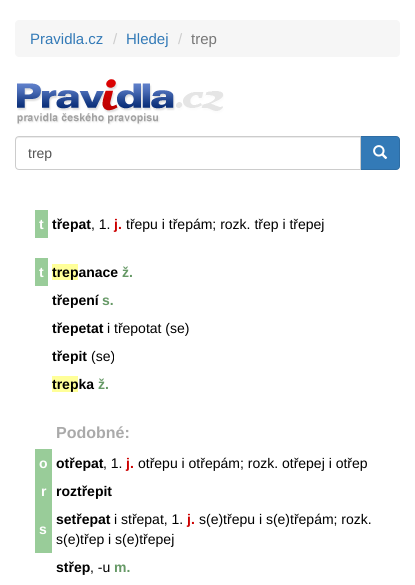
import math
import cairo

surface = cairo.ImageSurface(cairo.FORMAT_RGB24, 415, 585)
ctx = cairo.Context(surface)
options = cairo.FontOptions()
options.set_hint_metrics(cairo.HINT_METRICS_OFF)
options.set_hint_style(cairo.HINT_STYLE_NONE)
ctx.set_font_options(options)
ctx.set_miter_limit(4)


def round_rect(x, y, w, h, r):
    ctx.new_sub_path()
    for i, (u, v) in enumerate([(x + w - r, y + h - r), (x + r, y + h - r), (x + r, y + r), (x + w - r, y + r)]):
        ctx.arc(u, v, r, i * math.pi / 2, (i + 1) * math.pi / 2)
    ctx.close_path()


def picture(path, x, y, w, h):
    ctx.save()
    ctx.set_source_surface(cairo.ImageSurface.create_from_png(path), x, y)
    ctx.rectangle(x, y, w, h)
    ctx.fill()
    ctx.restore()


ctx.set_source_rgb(1, 1, 1)
ctx.paint()
ctx.set_source_rgb(0.961, 0.961, 0.961)
round_rect(15, 20, 385, 37, 4)
ctx.fill()
ctx.select_font_face("Liberation Sans")
ctx.set_font_size(15)
ctx.set_source_rgb(0.2, 0.478, 0.718)
ctx.move_to(30, 44)
ctx.show_text("Pravidla.cz")
ctx.set_source_rgb(0.8, 0.8, 0.8)
ctx.move_to(113, 44)
ctx.show_text("/")
ctx.set_source_rgb(0.2, 0.478, 0.718)
ctx.move_to(126, 44)
ctx.show_text("Hledej")
ctx.set_source_rgb(0.8, 0.8, 0.8)
ctx.move_to(178, 44)
ctx.show_text("/")
ctx.set_source_rgb(0.467, 0.467, 0.467)
ctx.move_to(191, 44)
ctx.show_text("trep")
picture("img1.png", 17, 79, 207, 46)
ctx.set_source_rgb(0.2, 0.478, 0.718)
ctx.new_path()
ctx.move_to(360.5, 136.5)
ctx.line_to(396, 136.5)
ctx.curve_to(398, 136.5, 399.5, 138, 399.5, 140)
ctx.line_to(399.5, 166)
ctx.curve_to(399.5, 168, 398, 169.5, 396, 169.5)
ctx.line_to(360.5, 169.5)
ctx.close_path()
ctx.fill_preserve()
ctx.set_source_rgb(0.18, 0.427, 0.643)
ctx.set_line_width(1)
ctx.stroke()
ctx.set_source_rgb(1, 1, 1)
ctx.new_path()
ctx.move_to(19, 136)
ctx.line_to(361, 136)
ctx.line_to(361, 170)
ctx.line_to(19, 170)
ctx.curve_to(17, 170, 15, 168, 15, 166)
ctx.line_to(15, 140)
ctx.curve_to(15, 138, 17, 136, 19, 136)
ctx.close_path()
ctx.fill()
ctx.set_source_rgb(0.925, 0.925, 0.925)
ctx.new_path()
ctx.move_to(19, 138)
ctx.line_to(360, 138)
ctx.line_to(360, 137)
ctx.line_to(19, 137)
ctx.curve_to(17, 137, 16, 138, 16, 140)
ctx.line_to(16, 141)
ctx.curve_to(16, 139, 17, 138, 19, 138)
ctx.close_path()
ctx.fill()
ctx.new_path()
ctx.move_to(19, 136.5)
ctx.line_to(360.5, 136.5)
ctx.line_to(360.5, 169.5)
ctx.line_to(19, 169.5)
ctx.curve_to(17, 169.5, 15.5, 168, 15.5, 166)
ctx.line_to(15.5, 140)
ctx.curve_to(15.5, 138, 17, 136.5, 19, 136.5)
ctx.close_path()
ctx.set_source_rgb(0.8, 0.8, 0.8)
ctx.stroke()
ctx.set_font_size(14)
ctx.set_source_rgb(0.333, 0.333, 0.333)
ctx.move_to(28, 158)
ctx.show_text("trep")
picture("img2.png", 373, 145, 15, 14)
ctx.set_source_rgb(0.6, 0.8, 0.6)
ctx.rectangle(35, 210, 13, 28)
ctx.fill()
ctx.select_font_face("Liberation Sans", cairo.FONT_SLANT_NORMAL, cairo.FONT_WEIGHT_BOLD)
ctx.set_source_rgb(1, 1, 1)
ctx.move_to(39, 229)
ctx.show_text("t")
ctx.set_source_rgb(0, 0, 0)
ctx.move_to(52, 229)
ctx.show_text("třepat")
ctx.select_font_face("Liberation Sans")
ctx.move_to(91, 229)
ctx.show_text(", 1.")
ctx.select_font_face("Liberation Sans", cairo.FONT_SLANT_NORMAL, cairo.FONT_WEIGHT_BOLD)
ctx.set_source_rgb(0.8, 0, 0)
ctx.move_to(114, 229)
ctx.show_text("j.")
ctx.select_font_face("Liberation Sans")
ctx.set_source_rgb(0, 0, 0)
ctx.move_to(126, 229)
ctx.show_text("třepu i třepám; rozk. třep i třepej")
ctx.set_source_rgb(0.6, 0.8, 0.6)
ctx.rectangle(35, 258, 13, 28)
ctx.fill()
ctx.select_font_face("Liberation Sans", cairo.FONT_SLANT_NORMAL, cairo.FONT_WEIGHT_BOLD)
ctx.set_source_rgb(1, 1, 1)
ctx.move_to(39, 277)
ctx.show_text("t")
ctx.set_source_rgb(1, 1, 0.6)
ctx.rectangle(52, 264, 26, 16)
ctx.fill()
ctx.set_source_rgb(0, 0, 0)
ctx.move_to(52, 277)
ctx.show_text("trepanace")
ctx.set_source_rgb(0.4, 0.6, 0.4)
ctx.move_to(122, 277)
ctx.show_text("ž.")
ctx.set_source_rgb(0, 0, 0)
ctx.move_to(52, 305)
ctx.show_text("třepení")
ctx.set_source_rgb(0.4, 0.6, 0.4)
ctx.move_to(102, 305)
ctx.show_text("s.")
ctx.set_source_rgb(0, 0, 0)
ctx.move_to(52, 333)
ctx.show_text("třepetat")
ctx.select_font_face("Liberation Sans")
ctx.move_to(107, 333)
ctx.show_text("i třepotat (se)")
ctx.select_font_face("Liberation Sans", cairo.FONT_SLANT_NORMAL, cairo.FONT_WEIGHT_BOLD)
ctx.move_to(52, 361)
ctx.show_text("třepit")
ctx.select_font_face("Liberation Sans")
ctx.move_to(91, 361)
ctx.show_text("(se)")
ctx.set_source_rgb(1, 1, 0.6)
ctx.rectangle(52, 376, 26, 16)
ctx.fill()
ctx.select_font_face("Liberation Sans", cairo.FONT_SLANT_NORMAL, cairo.FONT_WEIGHT_BOLD)
ctx.set_source_rgb(0, 0, 0)
ctx.move_to(52, 389)
ctx.show_text("trepka")
ctx.set_source_rgb(0.4, 0.6, 0.4)
ctx.move_to(98, 389)
ctx.show_text("ž.")
ctx.set_font_size(16)
ctx.set_source_rgb(0.667, 0.667, 0.667)
ctx.move_to(56, 438)
ctx.show_text("Podobné:")
ctx.set_source_rgb(0.6, 0.8, 0.6)
ctx.rectangle(35, 449, 17, 104)
ctx.fill()
ctx.set_font_size(14)
ctx.set_source_rgb(1, 1, 1)
ctx.move_to(39, 468)
ctx.show_text("o")
ctx.set_source_rgb(0, 0, 0)
ctx.move_to(56, 468)
ctx.show_text("otřepat")
ctx.select_font_face("Liberation Sans")
ctx.move_to(103, 468)
ctx.show_text(", 1.")
ctx.select_font_face("Liberation Sans", cairo.FONT_SLANT_NORMAL, cairo.FONT_WEIGHT_BOLD)
ctx.set_source_rgb(0.8, 0, 0)
ctx.move_to(126, 468)
ctx.show_text("j.")
ctx.select_font_face("Liberation Sans")
ctx.set_source_rgb(0, 0, 0)
ctx.move_to(138, 468)
ctx.show_text("otřepu i otřepám; rozk. otřepej i otřep")
ctx.select_font_face("Liberation Sans", cairo.FONT_SLANT_NORMAL, cairo.FONT_WEIGHT_BOLD)
ctx.set_source_rgb(1, 1, 1)
ctx.move_to(41, 496)
ctx.show_text("r")
ctx.set_source_rgb(0, 0, 0)
ctx.move_to(56, 496)
ctx.show_text("roztřepit")
ctx.set_source_rgb(1, 1, 1)
ctx.move_to(39, 534)
ctx.show_text("s")
ctx.set_source_rgb(0, 0, 0)
ctx.move_to(56, 524)
ctx.show_text("setřepat")
ctx.select_font_face("Liberation Sans")
ctx.move_to(114, 524)
ctx.show_text("i střepat, 1.")
ctx.select_font_face("Liberation Sans", cairo.FONT_SLANT_NORMAL, cairo.FONT_WEIGHT_BOLD)
ctx.set_source_rgb(0.8, 0, 0)
ctx.move_to(187, 524)
ctx.show_text("j.")
ctx.select_font_face("Liberation Sans")
ctx.set_source_rgb(0, 0, 0)
ctx.move_to(199, 524)
ctx.show_text("s(e)třepu i s(e)třepám; rozk.")
ctx.move_to(56, 544)
ctx.show_text("s(e)třep i s(e)třepej")
ctx.select_font_face("Liberation Sans", cairo.FONT_SLANT_NORMAL, cairo.FONT_WEIGHT_BOLD)
ctx.move_to(56, 572)
ctx.show_text("střep")
ctx.select_font_face("Liberation Sans")
ctx.move_to(90, 572)
ctx.show_text(", -u")
ctx.select_font_face("Liberation Sans", cairo.FONT_SLANT_NORMAL, cairo.FONT_WEIGHT_BOLD)
ctx.set_source_rgb(0.4, 0.6, 0.4)
ctx.move_to(114, 572)
ctx.show_text("m.")
surface.write_to_png("page.png")
